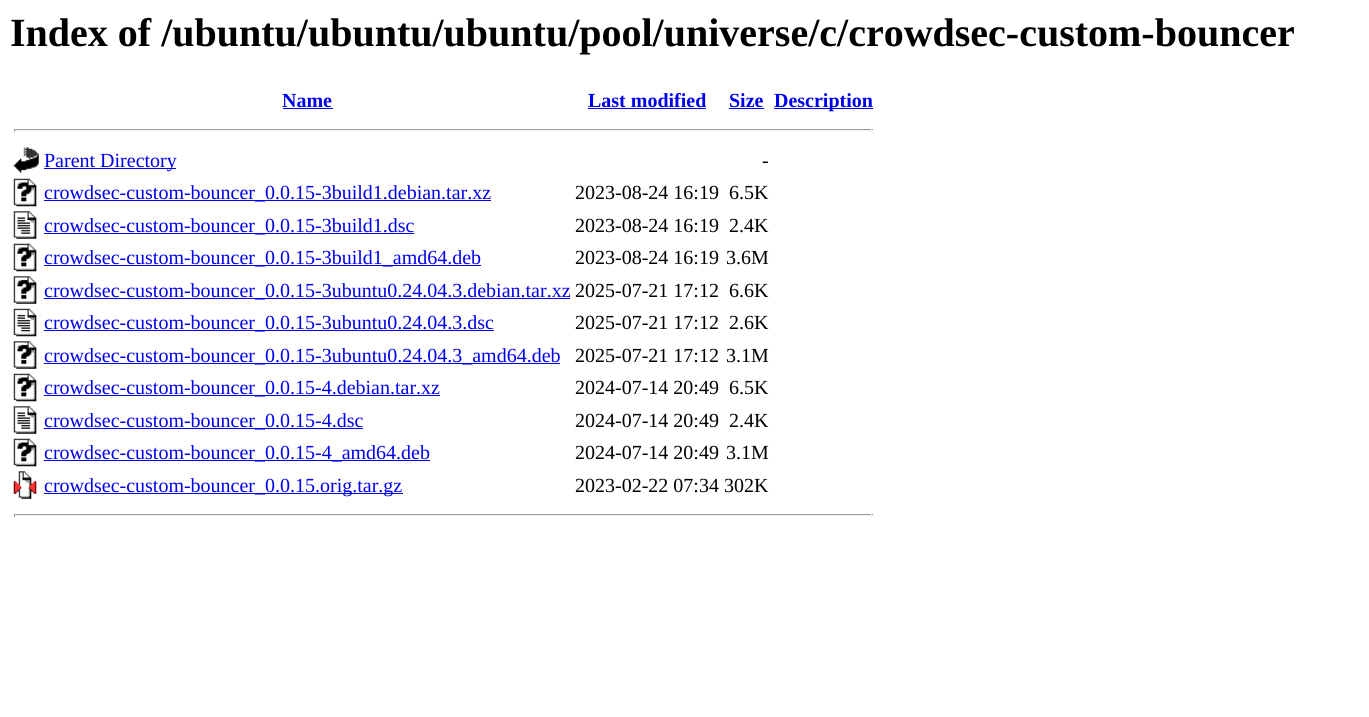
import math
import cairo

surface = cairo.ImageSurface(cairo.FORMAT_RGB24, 1369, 717)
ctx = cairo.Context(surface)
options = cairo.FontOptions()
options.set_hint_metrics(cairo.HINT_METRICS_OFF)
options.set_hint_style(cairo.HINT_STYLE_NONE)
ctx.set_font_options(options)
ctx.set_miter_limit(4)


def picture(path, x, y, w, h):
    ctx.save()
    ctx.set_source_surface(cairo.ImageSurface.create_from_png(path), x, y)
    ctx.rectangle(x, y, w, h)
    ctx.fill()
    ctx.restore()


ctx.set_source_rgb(1, 1, 1)
ctx.paint()
ctx.select_font_face("Liberation Serif", cairo.FONT_SLANT_NORMAL, cairo.FONT_WEIGHT_BOLD)
ctx.set_font_size(40)
ctx.set_source_rgb(0, 0, 0)
ctx.move_to(10, 46)
ctx.show_text("Index of /ubuntu/ubuntu/ubuntu/pool/universe/c/crowdsec-custom-bouncer")
ctx.set_font_size(20)
ctx.set_source_rgb(0, 0, 0.933)
ctx.move_to(282, 107)
ctx.show_text("Name")
ctx.rectangle(283, 108, 50, 1)
ctx.fill()
ctx.move_to(588, 107)
ctx.show_text("Last modified")
ctx.rectangle(588, 108, 118, 1)
ctx.fill()
ctx.move_to(729, 107)
ctx.show_text("Size")
ctx.rectangle(729, 108, 35, 1)
ctx.fill()
ctx.rectangle(774, 108, 99, 1)
ctx.fill()
ctx.move_to(774, 107)
ctx.show_text("Description")
ctx.set_source_rgb(0.624, 0.624, 0.624)
ctx.rectangle(14, 129, 859, 1)
ctx.fill()
ctx.set_source_rgb(0.933, 0.933, 0.933)
ctx.rectangle(871, 129, 1, 3)
ctx.fill()
ctx.rectangle(14, 130, 859, 1)
ctx.fill()
ctx.set_source_rgb(0.624, 0.624, 0.624)
ctx.rectangle(14, 129, 1, 3)
ctx.fill()
picture("img1.png", 13, 147, 26, 26)
ctx.set_source_rgb(0, 0, 0.933)
ctx.rectangle(44, 168, 132, 1)
ctx.fill()
ctx.select_font_face("Liberation Serif")
ctx.move_to(44, 167)
ctx.show_text("Parent Directory")
ctx.set_source_rgb(0, 0, 0)
ctx.move_to(762, 167)
ctx.show_text("-")
picture("img2.png", 13, 178, 24, 29)
ctx.set_source_rgb(0, 0, 0.933)
ctx.rectangle(44, 200, 447, 1)
ctx.fill()
ctx.move_to(44, 199)
ctx.show_text("crowdsec-custom-bouncer_0.0.15-3build1.debian.tar.xz")
ctx.set_source_rgb(0, 0, 0)
ctx.move_to(575, 199)
ctx.show_text("2023-08-24 16:19")
ctx.move_to(729, 199)
ctx.show_text("6.5K")
picture("img3.png", 13, 211, 24, 28)
ctx.set_source_rgb(0, 0, 0.933)
ctx.rectangle(44, 233, 370, 1)
ctx.fill()
ctx.move_to(44, 232)
ctx.show_text("crowdsec-custom-bouncer_0.0.15-3build1.dsc")
ctx.set_source_rgb(0, 0, 0)
ctx.move_to(575, 232)
ctx.show_text("2023-08-24 16:19")
ctx.move_to(729, 232)
ctx.show_text("2.4K")
picture("img2.png", 13, 243, 24, 29)
ctx.set_source_rgb(0, 0, 0.933)
ctx.rectangle(44, 265, 437, 1)
ctx.fill()
ctx.move_to(44, 264)
ctx.show_text("crowdsec-custom-bouncer_0.0.15-3build1_amd64.deb")
ctx.set_source_rgb(0, 0, 0)
ctx.move_to(575, 264)
ctx.show_text("2023-08-24 16:19")
ctx.move_to(726, 264)
ctx.show_text("3.6M")
picture("img4.png", 13, 276, 24, 28)
ctx.set_source_rgb(0, 0, 0.933)
ctx.rectangle(44, 298, 526, 1)
ctx.fill()
ctx.move_to(44, 297)
ctx.show_text("crowdsec-custom-bouncer_0.0.15-3ubuntu0.24.04.3.debian.tar.xz")
ctx.set_source_rgb(0, 0, 0)
ctx.move_to(575, 297)
ctx.show_text("2025-07-21 17:12")
ctx.move_to(729, 297)
ctx.show_text("6.6K")
picture("img5.png", 13, 308, 24, 29)
ctx.set_source_rgb(0, 0, 0.933)
ctx.rectangle(44, 330, 450, 1)
ctx.fill()
ctx.move_to(44, 329)
ctx.show_text("crowdsec-custom-bouncer_0.0.15-3ubuntu0.24.04.3.dsc")
ctx.set_source_rgb(0, 0, 0)
ctx.move_to(575, 329)
ctx.show_text("2025-07-21 17:12")
ctx.move_to(729, 329)
ctx.show_text("2.6K")
picture("img6.png", 13, 341, 24, 28)
ctx.set_source_rgb(0, 0, 0.933)
ctx.rectangle(44, 363, 516, 1)
ctx.fill()
ctx.move_to(44, 362)
ctx.show_text("crowdsec-custom-bouncer_0.0.15-3ubuntu0.24.04.3_amd64.deb")
ctx.set_source_rgb(0, 0, 0)
ctx.move_to(575, 362)
ctx.show_text("2025-07-21 17:12")
ctx.move_to(726, 362)
ctx.show_text("3.1M")
picture("img2.png", 13, 373, 24, 29)
ctx.set_source_rgb(0, 0, 0.933)
ctx.rectangle(44, 395, 396, 1)
ctx.fill()
ctx.move_to(44, 394)
ctx.show_text("crowdsec-custom-bouncer_0.0.15-4.debian.tar.xz")
ctx.set_source_rgb(0, 0, 0)
ctx.move_to(575, 394)
ctx.show_text("2024-07-14 20:49")
ctx.move_to(729, 394)
ctx.show_text("6.5K")
picture("img3.png", 13, 406, 24, 28)
ctx.set_source_rgb(0, 0, 0.933)
ctx.rectangle(44, 428, 319, 1)
ctx.fill()
ctx.move_to(44, 427)
ctx.show_text("crowdsec-custom-bouncer_0.0.15-4.dsc")
ctx.set_source_rgb(0, 0, 0)
ctx.move_to(575, 427)
ctx.show_text("2024-07-14 20:49")
ctx.move_to(729, 427)
ctx.show_text("2.4K")
picture("img2.png", 13, 438, 24, 29)
ctx.set_source_rgb(0, 0, 0.933)
ctx.rectangle(44, 460, 386, 1)
ctx.fill()
ctx.move_to(44, 459)
ctx.show_text("crowdsec-custom-bouncer_0.0.15-4_amd64.deb")
ctx.set_source_rgb(0, 0, 0)
ctx.move_to(575, 459)
ctx.show_text("2024-07-14 20:49")
ctx.move_to(726, 459)
ctx.show_text("3.1M")
picture("img7.png", 13, 471, 24, 28)
ctx.set_source_rgb(0, 0, 0.933)
ctx.rectangle(44, 493, 359, 1)
ctx.fill()
ctx.move_to(44, 492)
ctx.show_text("crowdsec-custom-bouncer_0.0.15.orig.tar.gz")
ctx.set_source_rgb(0, 0, 0)
ctx.move_to(575, 492)
ctx.show_text("2023-02-22 07:34 302K")
ctx.set_source_rgb(0.624, 0.624, 0.624)
ctx.rectangle(14, 514, 859, 1)
ctx.fill()
ctx.set_source_rgb(0.933, 0.933, 0.933)
ctx.rectangle(871, 514, 1, 3)
ctx.fill()
ctx.rectangle(14, 515, 859, 1)
ctx.fill()
ctx.set_source_rgb(0.624, 0.624, 0.624)
ctx.rectangle(14, 514, 1, 3)
ctx.fill()
surface.write_to_png("page.png")
